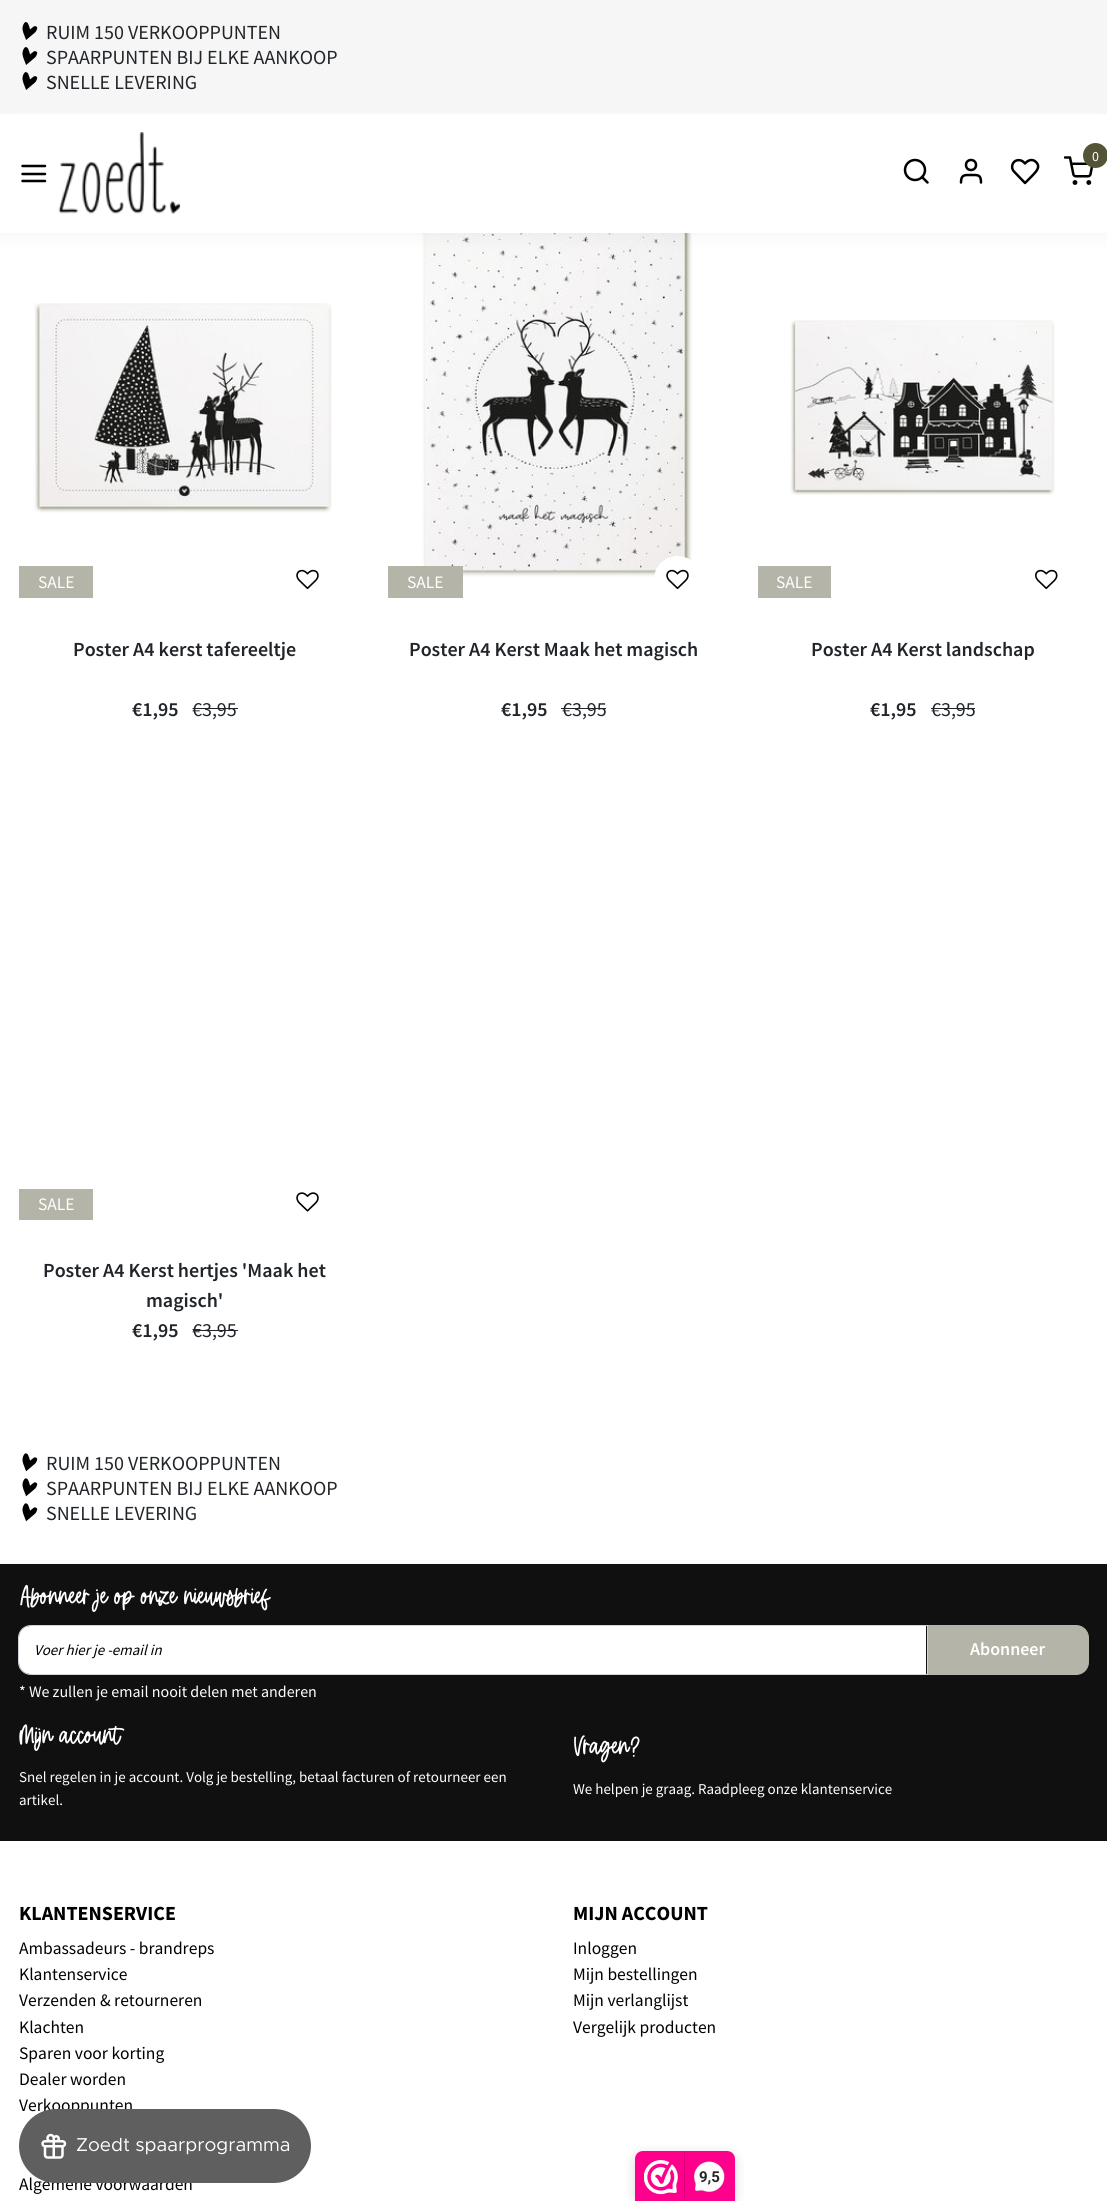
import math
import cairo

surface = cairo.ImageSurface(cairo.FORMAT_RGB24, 1107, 2201)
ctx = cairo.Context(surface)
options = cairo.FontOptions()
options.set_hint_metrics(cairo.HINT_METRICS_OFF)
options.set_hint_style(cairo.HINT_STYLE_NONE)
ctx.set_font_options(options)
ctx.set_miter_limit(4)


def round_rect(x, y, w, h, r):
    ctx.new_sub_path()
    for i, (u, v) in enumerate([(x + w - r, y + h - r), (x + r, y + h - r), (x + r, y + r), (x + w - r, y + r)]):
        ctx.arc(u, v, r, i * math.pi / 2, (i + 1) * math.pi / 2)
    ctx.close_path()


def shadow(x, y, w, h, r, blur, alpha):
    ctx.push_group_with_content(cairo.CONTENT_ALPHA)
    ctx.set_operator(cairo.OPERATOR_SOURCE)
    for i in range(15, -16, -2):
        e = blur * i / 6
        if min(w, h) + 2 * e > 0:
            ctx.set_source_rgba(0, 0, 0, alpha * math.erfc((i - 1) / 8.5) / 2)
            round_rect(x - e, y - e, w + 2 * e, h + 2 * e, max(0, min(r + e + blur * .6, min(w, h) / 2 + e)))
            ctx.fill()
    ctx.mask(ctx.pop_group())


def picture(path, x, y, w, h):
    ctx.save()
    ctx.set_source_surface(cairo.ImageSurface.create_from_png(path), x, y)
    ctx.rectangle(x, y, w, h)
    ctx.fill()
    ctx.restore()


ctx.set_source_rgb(1, 1, 1)
ctx.paint()
picture("img6.png", 421, 233, 271, 344)
ctx.set_source_rgb(0, 0, 0)
shadow(0, 3, 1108, 232, 0, 10, 0.05)
ctx.set_source_rgb(0.961, 0.961, 0.961)
ctx.rectangle(0, 0, 1107, 113)
ctx.fill()
ctx.set_source_rgb(0.969, 0.969, 0.969)
ctx.rectangle(10, 113, 1088, 1)
ctx.fill()
picture("img1.png", 22, 22, 16, 18)
ctx.select_font_face("Source Sans Pro")
ctx.set_font_size(20)
ctx.set_source_rgb(0.129, 0.145, 0.161)
ctx.move_to(46, 39)
ctx.show_text("RUIM 150 VERKOOPPUNTEN")
picture("img1.png", 22, 47, 16, 18)
ctx.move_to(46, 64)
ctx.show_text("SPAARPUNTEN BIJ ELKE AANKOOP")
picture("img1.png", 22, 72, 16, 18)
ctx.move_to(46, 89)
ctx.show_text("SNELLE LEVERING")
ctx.set_source_rgb(1, 1, 1)
ctx.rectangle(0, 114, 1107, 119)
ctx.fill()
ctx.new_path()
ctx.move_to(22.5, 174)
ctx.line_to(45, 174)
ctx.move_to(22.5, 166)
ctx.line_to(45, 166)
ctx.move_to(22.5, 181)
ctx.line_to(45, 181)
ctx.set_source_rgb(0, 0, 0)
ctx.set_line_width(2.5)
ctx.set_line_cap(cairo.LINE_CAP_ROUND)
ctx.set_line_join(cairo.LINE_JOIN_ROUND)
ctx.stroke()
picture("img2.png", 58, 132, 122, 82)
picture("img3.png", 1064, 156, 30, 29)
ctx.set_source_rgb(0.329, 0.329, 0.212)
ctx.arc(1095.5, 155.5, 12.5, 0, 2 * math.pi)
ctx.fill()
ctx.set_font_size(14)
ctx.set_source_rgb(1, 1, 1)
ctx.move_to(1092, 161)
ctx.show_text("0")
ctx.new_path()
ctx.arc(915, 170, 10, 0, 2 * math.pi)
ctx.set_source_rgb(0, 0, 0)
ctx.set_line_cap(cairo.LINE_CAP_BUTT)
ctx.set_line_join(cairo.LINE_JOIN_MITER)
ctx.stroke()
ctx.new_path()
ctx.move_to(927.5, 182.5)
ctx.line_to(922, 177)
ctx.move_to(981, 182.5)
ctx.curve_to(981, 174.5, 978, 175, 971, 175)
ctx.curve_to(964.5, 175, 961, 174.5, 961, 182.5)
ctx.set_line_cap(cairo.LINE_CAP_ROUND)
ctx.set_line_join(cairo.LINE_JOIN_ROUND)
ctx.stroke()
ctx.arc(971, 165, 5, 0, 2 * math.pi)
ctx.set_line_cap(cairo.LINE_CAP_BUTT)
ctx.set_line_join(cairo.LINE_JOIN_MITER)
ctx.stroke()
ctx.new_path()
ctx.move_to(1036, 162)
ctx.curve_to(1032.5, 158.5, 1028, 160, 1025, 163.5)
ctx.line_to(1023.5, 162)
ctx.curve_to(1021, 159.5, 1016.5, 159.5, 1014, 162)
ctx.curve_to(1011.5, 164.5, 1011.5, 169, 1014, 171.5)
ctx.line_to(1025, 183)
ctx.line_to(1031.5, 176.5)
ctx.curve_to(1035, 172.5, 1041.5, 167.5, 1036, 162)
ctx.close_path()
ctx.set_line_cap(cairo.LINE_CAP_ROUND)
ctx.set_line_join(cairo.LINE_JOIN_ROUND)
ctx.stroke()
picture("img4.png", 34, 303, 298, 210)
ctx.set_source_rgb(0.706, 0.71, 0.659)
ctx.rectangle(19, 566, 74, 32)
ctx.fill()
ctx.set_font_size(17.5)
ctx.set_source_rgb(1, 1, 1)
ctx.move_to(38, 588)
ctx.show_text("SALE")
picture("img5.png", 296, 569, 23, 21)
ctx.select_font_face("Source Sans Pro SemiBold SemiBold")
ctx.set_font_size(20)
ctx.set_source_rgb(0.129, 0.145, 0.161)
ctx.move_to(73, 656)
ctx.show_text("Poster A4 kerst tafereeltje")
ctx.move_to(132, 716)
ctx.show_text("€1,95")
ctx.select_font_face("Source Sans Pro")
ctx.move_to(192, 716)
ctx.show_text("€3,95")
ctx.rectangle(193, 708, 45, 1)
ctx.fill()
ctx.set_source_rgb(0.706, 0.71, 0.659)
ctx.rectangle(388, 566, 75, 32)
ctx.fill()
ctx.set_font_size(17.5)
ctx.set_source_rgb(1, 1, 1)
ctx.move_to(407, 588)
ctx.show_text("SALE")
round_rect(654, 556, 47, 48, 23.5)
ctx.fill()
picture("img5.png", 666, 569, 23, 21)
ctx.select_font_face("Source Sans Pro SemiBold SemiBold")
ctx.set_font_size(20)
ctx.set_source_rgb(0.129, 0.145, 0.161)
ctx.move_to(409, 656)
ctx.show_text("Poster A4 Kerst Maak het magisch")
ctx.move_to(501, 716)
ctx.show_text("€1,95")
ctx.select_font_face("Source Sans Pro")
ctx.move_to(562, 716)
ctx.show_text("€3,95")
ctx.rectangle(561, 708, 45, 1)
ctx.fill()
picture("img7.png", 790, 320, 265, 175)
ctx.set_source_rgb(0.706, 0.71, 0.659)
ctx.rectangle(758, 566, 73, 32)
ctx.fill()
ctx.set_font_size(17.5)
ctx.set_source_rgb(1, 1, 1)
ctx.move_to(776, 588)
ctx.show_text("SALE")
picture("img8.png", 1035, 569, 23, 21)
ctx.select_font_face("Source Sans Pro SemiBold SemiBold")
ctx.set_font_size(20)
ctx.set_source_rgb(0.129, 0.145, 0.161)
ctx.move_to(811, 656)
ctx.show_text("Poster A4 Kerst landschap")
ctx.move_to(870, 716)
ctx.show_text("€1,95")
ctx.select_font_face("Source Sans Pro")
ctx.move_to(931, 716)
ctx.show_text("€3,95")
ctx.rectangle(931, 708, 44, 1)
ctx.fill()
ctx.set_source_rgb(0.706, 0.71, 0.659)
ctx.rectangle(19, 1189, 74, 31)
ctx.fill()
ctx.set_font_size(17.5)
ctx.set_source_rgb(1, 1, 1)
ctx.move_to(38, 1210)
ctx.show_text("SALE")
picture("img9.png", 296, 1192, 23, 20)
ctx.select_font_face("Source Sans Pro SemiBold SemiBold")
ctx.set_font_size(20)
ctx.set_source_rgb(0.129, 0.145, 0.161)
ctx.move_to(43, 1277)
ctx.show_text("Poster A4 Kerst hertjes 'Maak het")
ctx.move_to(146, 1307)
ctx.show_text("magisch'")
ctx.move_to(132, 1337)
ctx.show_text("€1,95")
ctx.select_font_face("Source Sans Pro")
ctx.move_to(192, 1337)
ctx.show_text("€3,95")
ctx.rectangle(193, 1330, 45, 1)
ctx.fill()
ctx.set_source_rgb(0.969, 0.969, 0.969)
ctx.rectangle(0, 1563, 1107, 1)
ctx.fill()
picture("img10.png", 22, 1453, 16, 19)
ctx.set_source_rgb(0.129, 0.145, 0.161)
ctx.move_to(46, 1470)
ctx.show_text("RUIM 150 VERKOOPPUNTEN")
picture("img10.png", 22, 1478, 16, 19)
ctx.move_to(46, 1495)
ctx.show_text("SPAARPUNTEN BIJ ELKE AANKOOP")
picture("img10.png", 22, 1503, 16, 19)
ctx.move_to(46, 1520)
ctx.show_text("SNELLE LEVERING")
ctx.set_source_rgb(0.063, 0.063, 0.063)
ctx.rectangle(0, 1564, 1107, 277)
ctx.fill()
ctx.select_font_face("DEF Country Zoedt")
ctx.set_font_size(25)
ctx.set_source_rgb(1, 1, 1)
ctx.move_to(19, 1606)
ctx.show_text("Abonneer je op onze nieuwsbrief")
ctx.new_path()
ctx.move_to(30, 1626)
ctx.line_to(926, 1626)
ctx.line_to(926, 1674)
ctx.line_to(30, 1674)
ctx.curve_to(24, 1674, 19, 1669, 19, 1663)
ctx.line_to(19, 1637)
ctx.curve_to(19, 1631, 24, 1626, 30, 1626)
ctx.close_path()
ctx.fill()
ctx.new_path()
ctx.move_to(31, 1625.5)
ctx.line_to(927.5, 1625.5)
ctx.line_to(927.5, 1674.5)
ctx.line_to(31, 1674.5)
ctx.curve_to(24, 1674.5, 18.5, 1669, 18.5, 1662)
ctx.line_to(18.5, 1638)
ctx.curve_to(18.5, 1631, 24, 1625.5, 31, 1625.5)
ctx.close_path()
ctx.set_source_rgb(0.808, 0.831, 0.855)
ctx.set_line_width(1)
ctx.set_line_cap(cairo.LINE_CAP_BUTT)
ctx.set_line_join(cairo.LINE_JOIN_MITER)
ctx.stroke()
ctx.select_font_face("Source Sans Pro", cairo.FONT_SLANT_ITALIC)
ctx.set_font_size(15)
ctx.set_source_rgb(0, 0, 0)
ctx.move_to(34, 1655)
ctx.show_text("Voer hier je -email in")
ctx.set_source_rgb(0.706, 0.71, 0.659)
ctx.new_path()
ctx.move_to(928.5, 1625.5)
ctx.line_to(1076, 1625.5)
ctx.curve_to(1083, 1625.5, 1088.5, 1631, 1088.5, 1638)
ctx.line_to(1088.5, 1662)
ctx.curve_to(1088.5, 1669, 1083, 1674.5, 1076, 1674.5)
ctx.line_to(928.5, 1674.5)
ctx.close_path()
ctx.fill_preserve()
ctx.stroke()
ctx.select_font_face("Source Sans Pro SemiBold SemiBold")
ctx.set_font_size(18)
ctx.set_source_rgb(1, 1, 1)
ctx.move_to(970, 1655)
ctx.show_text("Abonneer")
ctx.select_font_face("Source Sans Pro")
ctx.set_font_size(16)
ctx.move_to(19, 1697)
ctx.show_text("* We zullen je email nooit delen met anderen")
ctx.select_font_face("DEF Country Zoedt")
ctx.set_font_size(25)
ctx.move_to(19, 1745)
ctx.show_text("Mijn account")
ctx.select_font_face("Source Sans Pro")
ctx.set_font_size(15)
ctx.move_to(19, 1782)
ctx.show_text("Snel regelen in je account. Volg je bestelling, betaal facturen of retourneer een")
ctx.move_to(19, 1805)
ctx.show_text("artikel.")
ctx.select_font_face("DEF Country Zoedt")
ctx.set_font_size(25)
ctx.move_to(573, 1756)
ctx.show_text("Vragen?")
ctx.select_font_face("Source Sans Pro")
ctx.set_font_size(15)
ctx.move_to(573, 1794)
ctx.show_text("We helpen je graag. Raadpleeg onze klantenservice")
ctx.select_font_face("Source Sans Pro", cairo.FONT_SLANT_NORMAL, cairo.FONT_WEIGHT_BOLD)
ctx.set_font_size(20)
ctx.set_source_rgb(0, 0, 0)
ctx.move_to(19, 1920)
ctx.show_text("KLANTENSERVICE")
ctx.select_font_face("Source Sans Pro")
ctx.set_font_size(17.5)
ctx.move_to(19, 1954)
ctx.show_text("Ambassadeurs - brandreps")
ctx.move_to(19, 1980)
ctx.show_text("Klantenservice")
ctx.move_to(19, 2006)
ctx.show_text("Verzenden & retourneren")
ctx.move_to(19, 2033)
ctx.show_text("Klachten")
ctx.move_to(19, 2059)
ctx.show_text("Sparen voor korting")
ctx.move_to(19, 2085)
ctx.show_text("Dealer worden")
ctx.move_to(19, 2111)
ctx.show_text("Verkooppunten")
ctx.move_to(19, 2190)
ctx.show_text("Algemene voorwaarden")
ctx.select_font_face("Source Sans Pro", cairo.FONT_SLANT_NORMAL, cairo.FONT_WEIGHT_BOLD)
ctx.set_font_size(20)
ctx.move_to(573, 1920)
ctx.show_text("MIJN ACCOUNT")
ctx.select_font_face("Source Sans Pro")
ctx.set_font_size(17.5)
ctx.move_to(573, 1954)
ctx.show_text("Inloggen")
ctx.move_to(573, 1980)
ctx.show_text("Mijn bestellingen")
ctx.move_to(573, 2006)
ctx.show_text("Mijn verlanglijst")
ctx.move_to(573, 2033)
ctx.show_text("Vergelijk producten")
ctx.set_source_rgb(0.373, 0.373, 0.373)
round_rect(19, 2109, 292, 74, 37)
ctx.fill()
picture("img11.png", 41, 2133, 26, 26)
ctx.select_font_face("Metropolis")
ctx.set_font_size(18.75)
ctx.set_source_rgb(1, 1, 1)
ctx.move_to(76, 2151)
ctx.show_text("Zoedt spaarprogramma")
ctx.set_source_rgb(0, 0, 0)
shadow(635, 2154, 100, 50, 8, 6, 0.15)
ctx.set_source_rgb(0.996, 0, 0.549)
ctx.new_path()
ctx.move_to(643, 2151)
ctx.line_to(727, 2151)
ctx.curve_to(731.5, 2151, 735, 2154.5, 735, 2159)
ctx.line_to(735, 2201)
ctx.line_to(635, 2201)
ctx.line_to(635, 2159)
ctx.curve_to(635, 2154.5, 638.5, 2151, 643, 2151)
ctx.close_path()
ctx.fill()
picture("img12.png", 644, 2160, 34, 35)
ctx.set_source_rgb(0.847, 0, 0.467)
ctx.rectangle(684, 2153, 1, 48)
ctx.fill()
picture("img13.png", 694, 2161, 31, 32)
ctx.select_font_face("Roboto", cairo.FONT_SLANT_NORMAL, cairo.FONT_WEIGHT_BOLD)
ctx.set_font_size(15)
ctx.set_source_rgb(0.153, 0.149, 0.149)
ctx.move_to(699, 2182)
ctx.show_text("9,5")
surface.write_to_png("page.png")
